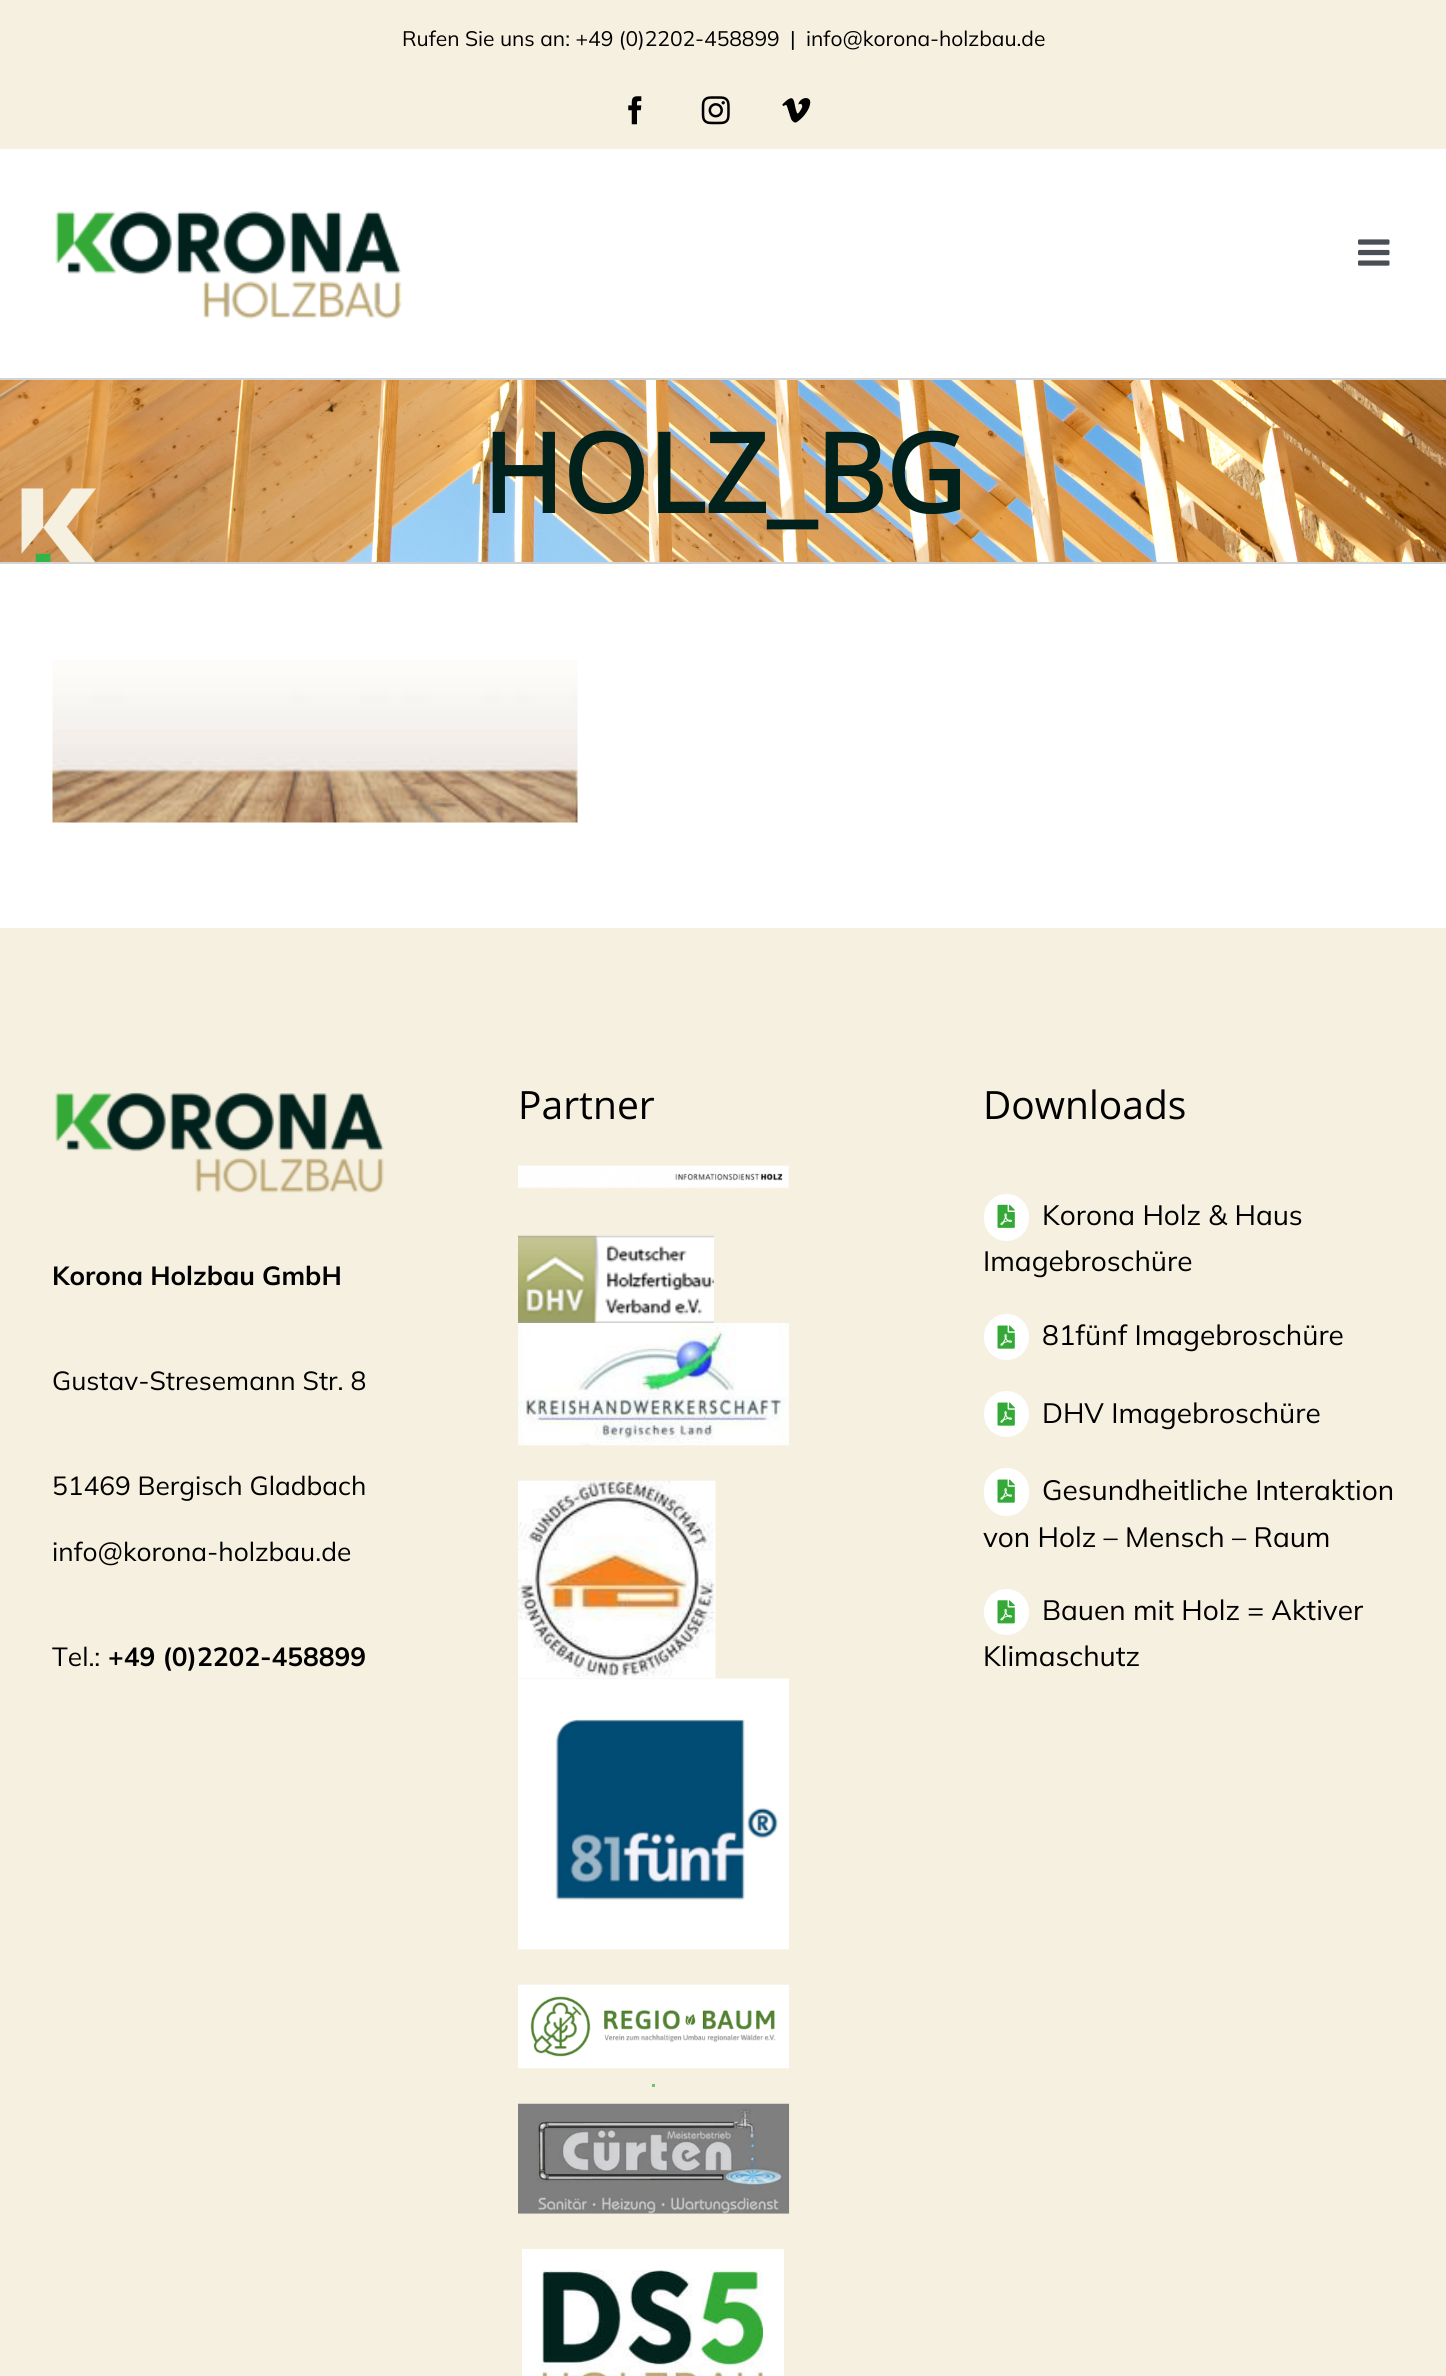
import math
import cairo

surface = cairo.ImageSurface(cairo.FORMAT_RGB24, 1446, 2376)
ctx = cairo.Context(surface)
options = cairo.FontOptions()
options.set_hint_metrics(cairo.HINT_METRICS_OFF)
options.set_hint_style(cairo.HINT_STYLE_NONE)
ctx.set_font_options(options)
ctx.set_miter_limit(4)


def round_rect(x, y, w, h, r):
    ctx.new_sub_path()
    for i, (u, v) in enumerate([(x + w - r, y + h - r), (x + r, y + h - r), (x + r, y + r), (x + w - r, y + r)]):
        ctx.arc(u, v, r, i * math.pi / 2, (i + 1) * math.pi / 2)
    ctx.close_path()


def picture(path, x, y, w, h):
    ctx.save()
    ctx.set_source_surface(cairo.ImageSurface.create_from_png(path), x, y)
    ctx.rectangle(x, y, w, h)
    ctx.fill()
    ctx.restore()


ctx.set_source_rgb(1, 1, 1)
ctx.paint()
ctx.set_source_rgb(0.961, 0.941, 0.878)
ctx.rectangle(0, 0, 1446, 149)
ctx.fill()
ctx.select_font_face("Mulish")
ctx.set_font_size(21)
ctx.set_source_rgb(0, 0, 0)
ctx.move_to(402, 46)
ctx.show_text("Rufen Sie uns an: +49 (0)2202-458899")
ctx.move_to(790, 46)
ctx.show_text("|")
ctx.move_to(806, 46)
ctx.show_text("info@korona-holzbau.de")
picture("img1.png", 628, 96, 14, 29)
picture("img2.png", 701, 96, 29, 29)
picture("img3.png", 782, 98, 29, 25)
picture("img4.png", 55, 211, 347, 108)
picture("img5.png", 1358, 239, 32, 27)
picture("img6.png", 0, 380, 1446, 182)
ctx.set_source_rgb(0.824, 0.827, 0.831)
ctx.rectangle(0, 378, 1446, 2)
ctx.fill()
ctx.rectangle(0, 562, 1446, 2)
ctx.fill()
ctx.select_font_face("Open Sans", cairo.FONT_SLANT_NORMAL, cairo.FONT_WEIGHT_BOLD)
ctx.set_font_size(109.25)
ctx.set_source_rgb(0.004, 0.133, 0.11)
ctx.move_to(482, 513)
ctx.show_text("HOLZ_BG")
picture("img7.png", 52, 660, 526, 163)
ctx.set_source_rgb(0.961, 0.941, 0.878)
ctx.rectangle(0, 928, 1446, 1448)
ctx.fill()
ctx.select_font_face("Open Sans")
ctx.set_font_size(39)
ctx.set_source_rgb(0, 0, 0)
ctx.move_to(518, 1119)
ctx.show_text("Partner")
picture("img8.png", 518, 1165, 271, 24)
picture("img9.png", 518, 1235, 196, 88)
picture("img10.png", 518, 1323, 271, 123)
picture("img11.png", 518, 1480, 198, 198)
picture("img12.png", 518, 1678, 271, 272)
picture("img13.png", 518, 1984, 271, 85)
ctx.set_source_rgb(0.455, 0.753, 0.435)
ctx.rectangle(652, 2084, 3, 3)
ctx.fill()
picture("img14.png", 518, 2103, 272, 111)
ctx.rectangle(532.5, 2259.5, 241, 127)
ctx.set_source_rgb(1, 1, 1)
ctx.set_line_width(21)
ctx.stroke()
picture("img15.png", 542, 2270, 221, 106)
ctx.set_source_rgb(0, 0, 0)
ctx.move_to(983, 1119)
ctx.show_text("Downloads")
ctx.set_source_rgb(1, 1, 1)
round_rect(984, 1194, 45, 47, 22.5)
ctx.fill()
picture("img16.png", 997, 1204, 18, 24)
ctx.select_font_face("Mulish")
ctx.set_font_size(28)
ctx.set_source_rgb(0, 0, 0)
ctx.move_to(1042, 1225)
ctx.show_text("Korona Holz & Haus")
ctx.move_to(983, 1271)
ctx.show_text("Imagebroschüre")
ctx.set_source_rgb(1, 1, 1)
round_rect(984, 1314, 45, 46, 22.5)
ctx.fill()
picture("img17.png", 997, 1325, 18, 24)
ctx.set_source_rgb(0, 0, 0)
ctx.move_to(1042, 1345)
ctx.show_text("81fünf Imagebroschüre")
ctx.set_source_rgb(1, 1, 1)
round_rect(984, 1391, 45, 46, 22.5)
ctx.fill()
picture("img17.png", 997, 1402, 18, 24)
ctx.set_source_rgb(0, 0, 0)
ctx.move_to(1042, 1423)
ctx.show_text("DHV Imagebroschüre")
ctx.set_source_rgb(1, 1, 1)
round_rect(984, 1468, 45, 48, 22.5)
ctx.fill()
picture("img17.png", 997, 1479, 18, 24)
ctx.set_source_rgb(0, 0, 0)
ctx.move_to(1042, 1500)
ctx.show_text("Gesundheitliche Interaktion")
ctx.move_to(983, 1547)
ctx.show_text("von Holz – Mensch – Raum")
ctx.set_source_rgb(1, 1, 1)
round_rect(984, 1589, 45, 46, 22.5)
ctx.fill()
picture("img18.png", 997, 1600, 18, 24)
ctx.set_source_rgb(0, 0, 0)
ctx.move_to(1042, 1620)
ctx.show_text("Bauen mit Holz = Aktiver")
ctx.move_to(983, 1666)
ctx.show_text("Klimaschutz")
picture("img19.png", 55, 1092, 329, 101)
ctx.select_font_face("Mulish", cairo.FONT_SLANT_NORMAL, cairo.FONT_WEIGHT_BOLD)
ctx.set_font_size(26.25)
ctx.move_to(52, 1285)
ctx.show_text("Korona Holzbau GmbH")
ctx.select_font_face("Mulish")
ctx.move_to(52, 1390)
ctx.show_text("Gustav-Stresemann Str. 8")
ctx.move_to(52, 1495)
ctx.show_text("51469 Bergisch Gladbach")
ctx.move_to(52, 1561)
ctx.show_text("info@korona-holzbau.de")
ctx.move_to(52, 1666)
ctx.show_text("Tel.:")
ctx.select_font_face("Mulish", cairo.FONT_SLANT_NORMAL, cairo.FONT_WEIGHT_BOLD)
ctx.move_to(108, 1666)
ctx.show_text("+49 (0)2202-458899")
surface.write_to_png("page.png")
